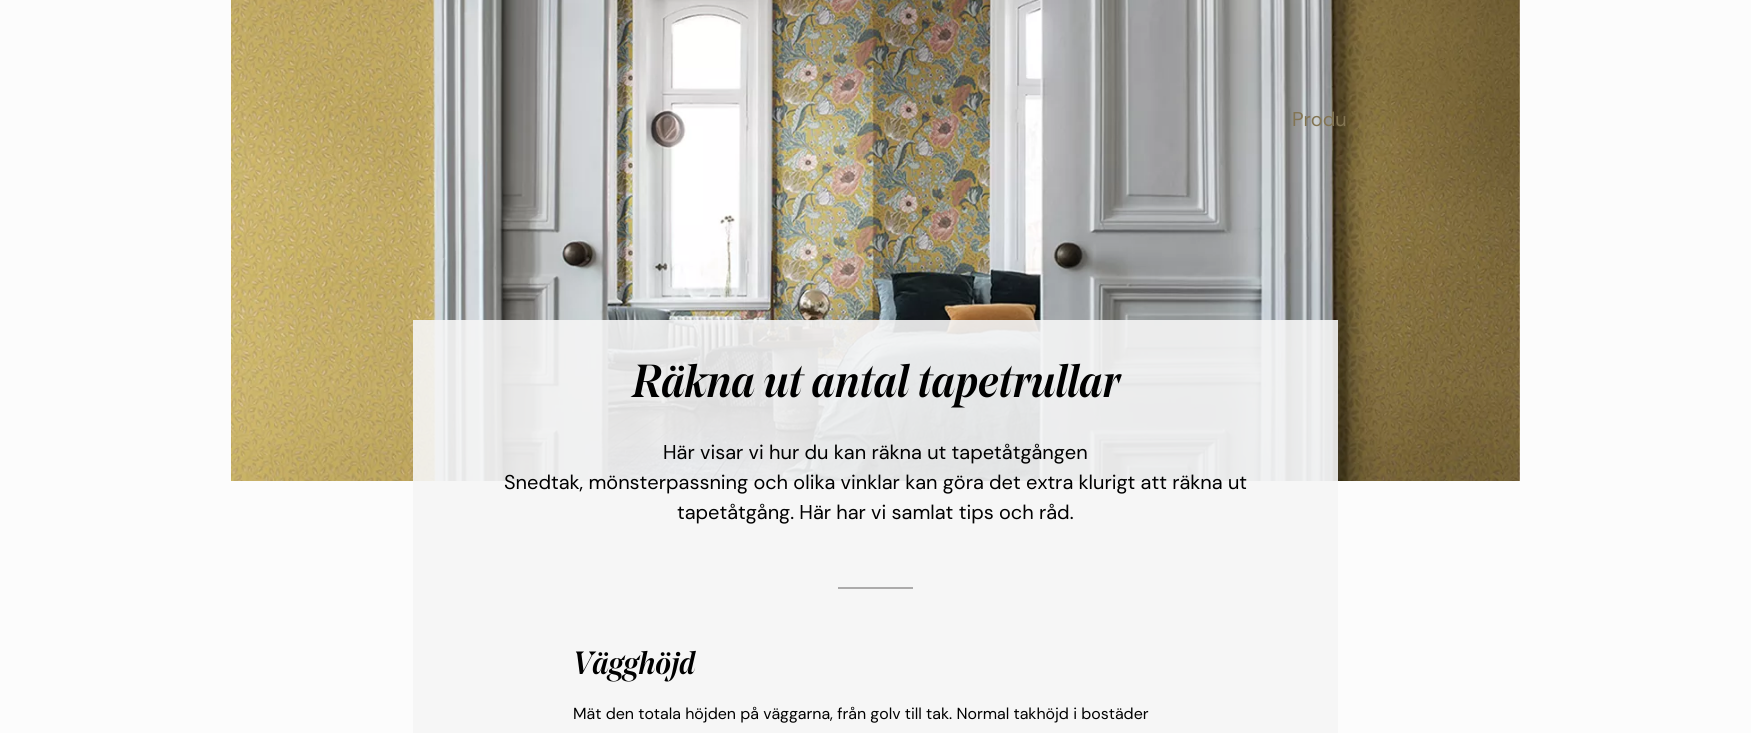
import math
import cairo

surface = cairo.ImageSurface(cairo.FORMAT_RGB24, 1751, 733)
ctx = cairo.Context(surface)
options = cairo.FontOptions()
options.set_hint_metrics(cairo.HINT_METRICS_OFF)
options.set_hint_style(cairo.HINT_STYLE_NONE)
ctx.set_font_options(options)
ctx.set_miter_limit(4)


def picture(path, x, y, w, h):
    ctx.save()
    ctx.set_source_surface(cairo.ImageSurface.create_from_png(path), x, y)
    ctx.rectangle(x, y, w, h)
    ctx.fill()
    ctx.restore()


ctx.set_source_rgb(0.988, 0.988, 0.988)
ctx.paint()
picture("img1.png", 231, 0, 1289, 481)
ctx.select_font_face("DM Sans")
ctx.set_font_size(20)
ctx.set_source_rgb(0.514, 0.459, 0.325)
ctx.move_to(1292, 126)
ctx.show_text("Produ")
ctx.set_source_rgba(0.961, 0.961, 0.961, 0.9)
ctx.rectangle(413, 320, 925, 413)
ctx.fill()
ctx.select_font_face("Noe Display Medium", cairo.FONT_SLANT_ITALIC)
ctx.set_font_size(46)
ctx.set_source_rgb(0, 0, 0)
ctx.move_to(632, 397)
ctx.show_text("Räkna ut antal tapetrullar")
ctx.select_font_face("DM Sans")
ctx.set_font_size(20)
ctx.move_to(663, 459)
ctx.show_text("Här visar vi hur du kan räkna ut tapetåtgången")
ctx.move_to(504, 489)
ctx.show_text("Snedtak, mönsterpassning och olika vinklar kan göra det extra klurigt att räkna ut")
ctx.move_to(677, 519)
ctx.show_text("tapetåtgång. Här har vi samlat tips och råd.")
ctx.set_source_rgb(0.675, 0.671, 0.671)
ctx.rectangle(838, 587, 75, 2)
ctx.fill()
ctx.select_font_face("Noe Display Medium", cairo.FONT_SLANT_ITALIC)
ctx.set_font_size(32)
ctx.set_source_rgb(0, 0, 0)
ctx.move_to(573, 674)
ctx.show_text("Vägghöjd")
ctx.select_font_face("DM Sans")
ctx.set_font_size(16)
ctx.move_to(573, 719)
ctx.show_text("Mät den totala höjden på väggarna, från golv till tak. Normal takhöjd i bostäder")
surface.write_to_png("page.png")
